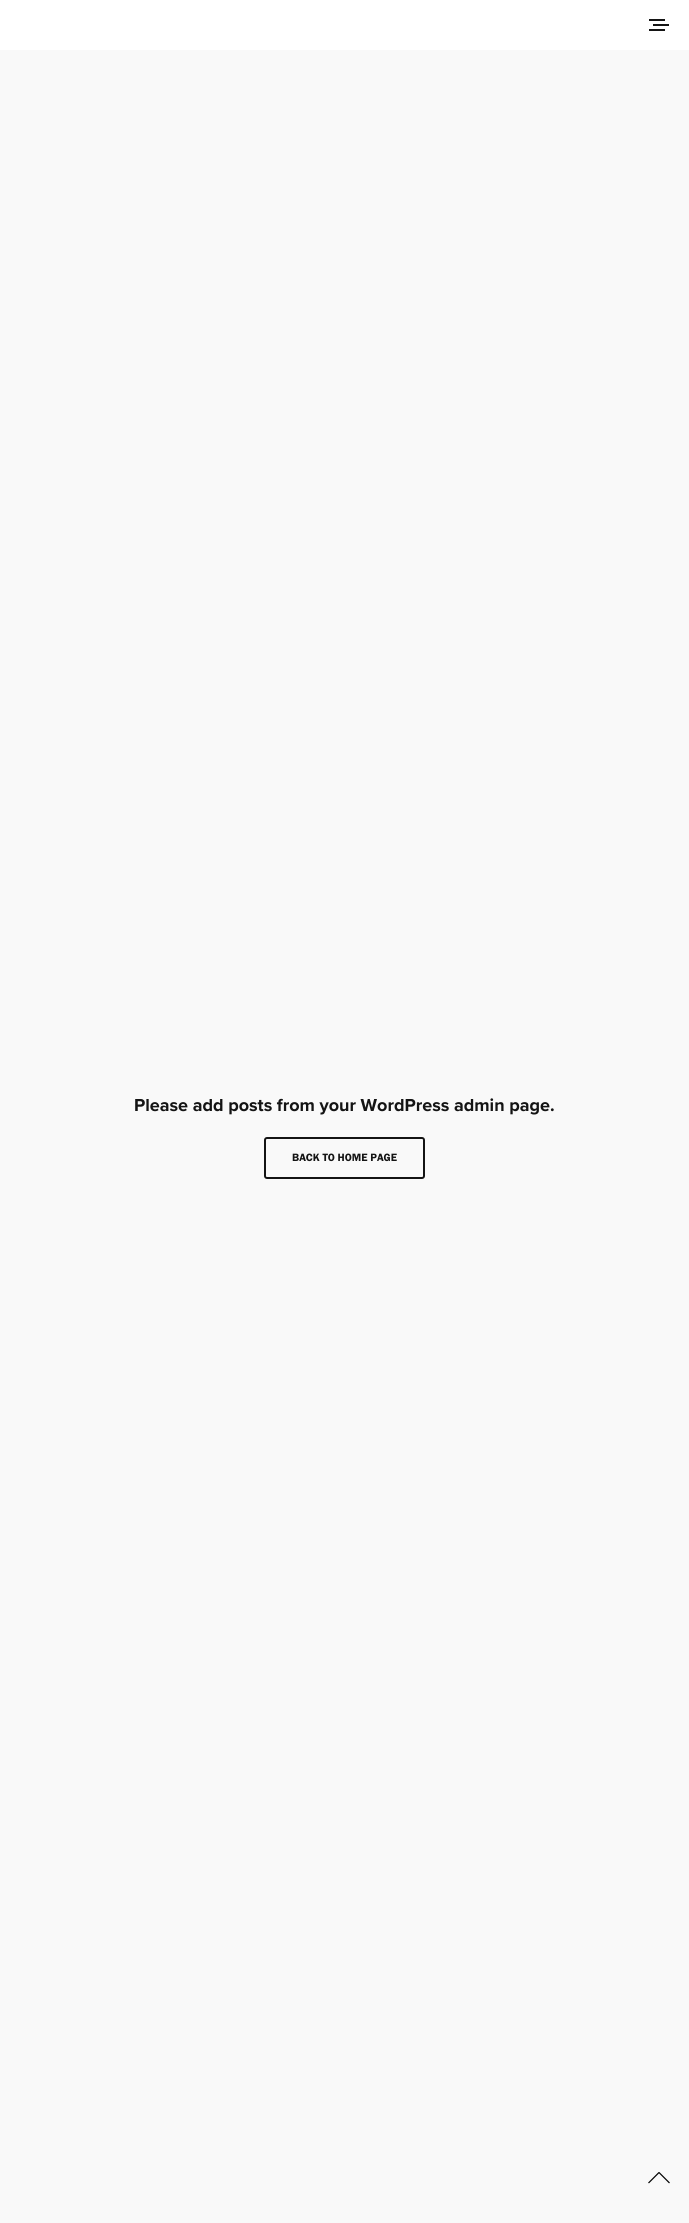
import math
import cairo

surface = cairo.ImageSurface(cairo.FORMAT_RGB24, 689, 2223)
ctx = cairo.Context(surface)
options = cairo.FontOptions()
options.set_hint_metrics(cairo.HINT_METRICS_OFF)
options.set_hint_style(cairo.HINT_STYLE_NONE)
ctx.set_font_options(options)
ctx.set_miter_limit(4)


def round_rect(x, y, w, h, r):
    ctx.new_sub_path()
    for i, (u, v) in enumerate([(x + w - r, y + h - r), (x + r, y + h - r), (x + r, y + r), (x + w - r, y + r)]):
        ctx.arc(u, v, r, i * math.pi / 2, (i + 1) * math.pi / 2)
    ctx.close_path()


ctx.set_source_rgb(0.976, 0.976, 0.976)
ctx.paint()
ctx.set_source_rgb(1, 1, 1)
ctx.rectangle(0, 0, 689, 50)
ctx.fill()
ctx.set_source_rgb(0.082, 0.082, 0.082)
ctx.rectangle(649, 19, 16, 2)
ctx.fill()
ctx.rectangle(653, 24, 16, 2)
ctx.fill()
ctx.rectangle(649, 29, 16, 2)
ctx.fill()
ctx.select_font_face("Proxima Nova", cairo.FONT_SLANT_NORMAL, cairo.FONT_WEIGHT_BOLD)
ctx.set_font_size(18)
ctx.move_to(134, 1111)
ctx.show_text("Please add posts from your WordPress admin page.")
round_rect(265, 1138, 159, 40, 2)
ctx.stroke()
ctx.select_font_face("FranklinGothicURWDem")
ctx.set_font_size(11)
ctx.move_to(292, 1161)
ctx.show_text("BACK TO HOME PAGE")
ctx.new_path()
ctx.move_to(648.5, 2183)
ctx.line_to(659, 2172.5)
ctx.line_to(669.5, 2183)
ctx.set_source_rgb(0, 0, 0)
ctx.set_line_width(1.2)
ctx.set_line_join(cairo.LINE_JOIN_BEVEL)
ctx.stroke()
surface.write_to_png("page.png")
